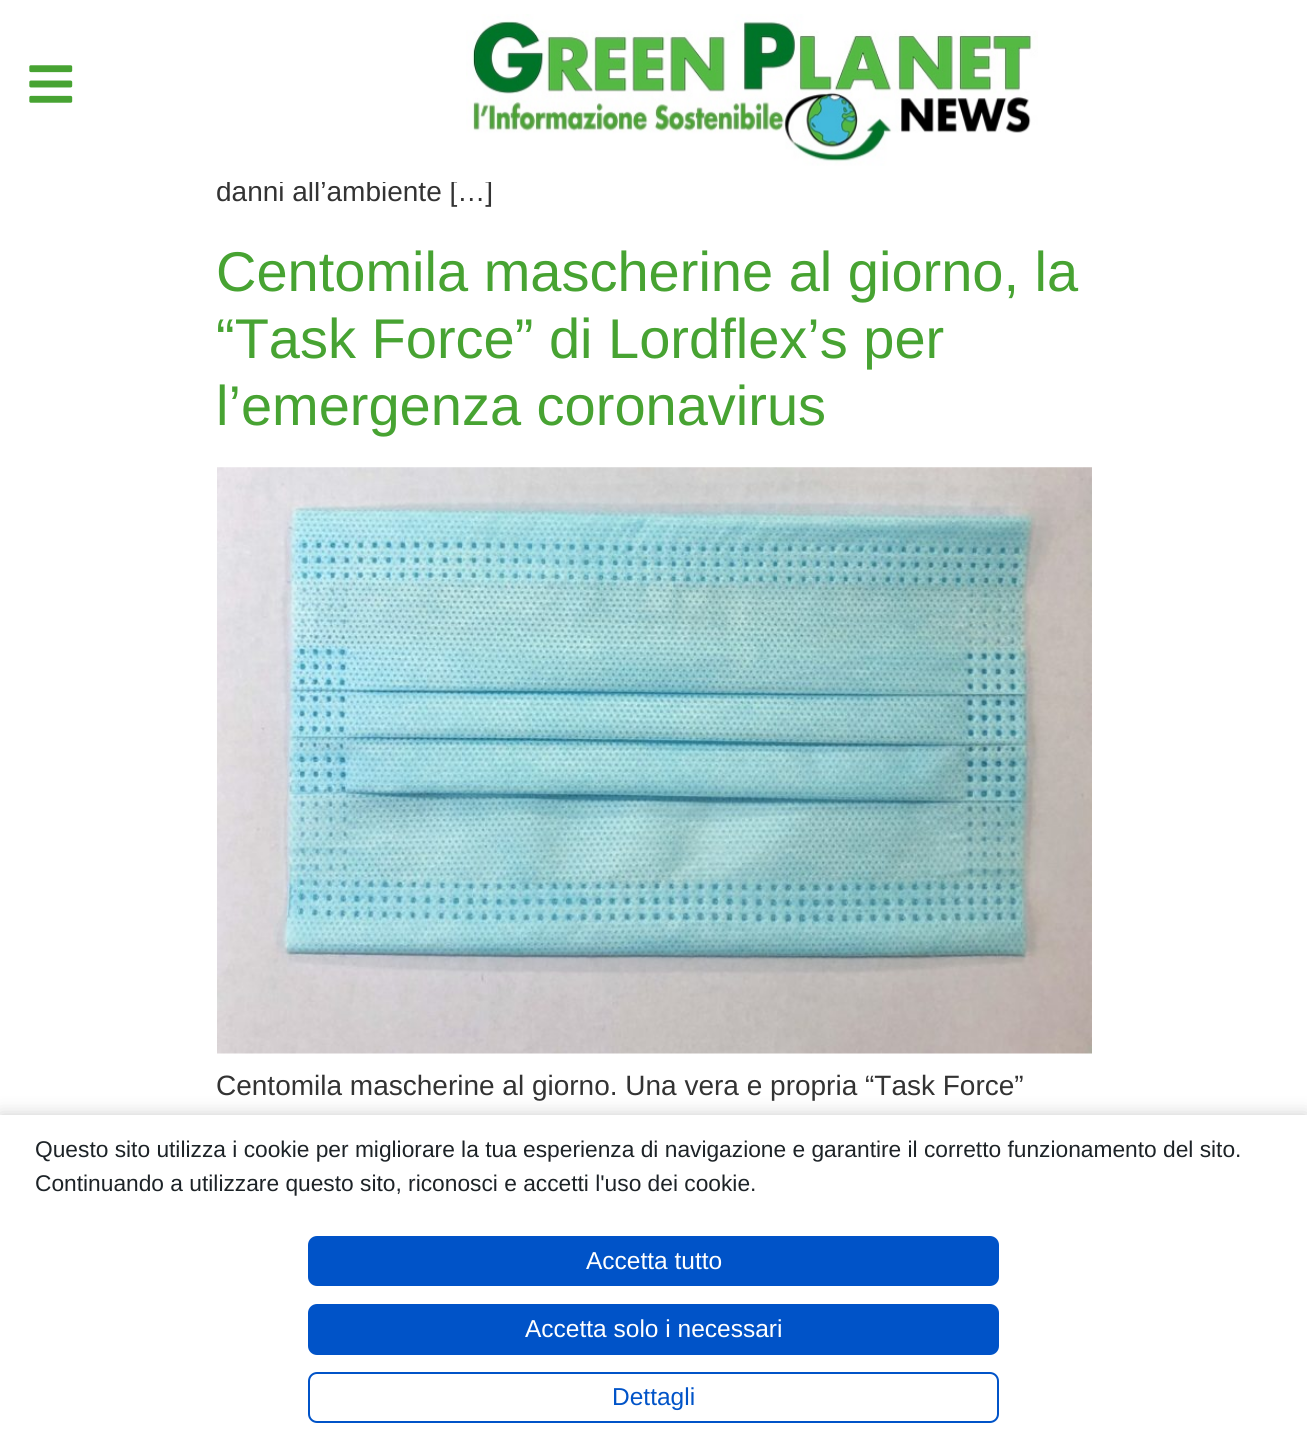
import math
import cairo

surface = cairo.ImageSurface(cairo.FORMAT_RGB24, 1307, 1440)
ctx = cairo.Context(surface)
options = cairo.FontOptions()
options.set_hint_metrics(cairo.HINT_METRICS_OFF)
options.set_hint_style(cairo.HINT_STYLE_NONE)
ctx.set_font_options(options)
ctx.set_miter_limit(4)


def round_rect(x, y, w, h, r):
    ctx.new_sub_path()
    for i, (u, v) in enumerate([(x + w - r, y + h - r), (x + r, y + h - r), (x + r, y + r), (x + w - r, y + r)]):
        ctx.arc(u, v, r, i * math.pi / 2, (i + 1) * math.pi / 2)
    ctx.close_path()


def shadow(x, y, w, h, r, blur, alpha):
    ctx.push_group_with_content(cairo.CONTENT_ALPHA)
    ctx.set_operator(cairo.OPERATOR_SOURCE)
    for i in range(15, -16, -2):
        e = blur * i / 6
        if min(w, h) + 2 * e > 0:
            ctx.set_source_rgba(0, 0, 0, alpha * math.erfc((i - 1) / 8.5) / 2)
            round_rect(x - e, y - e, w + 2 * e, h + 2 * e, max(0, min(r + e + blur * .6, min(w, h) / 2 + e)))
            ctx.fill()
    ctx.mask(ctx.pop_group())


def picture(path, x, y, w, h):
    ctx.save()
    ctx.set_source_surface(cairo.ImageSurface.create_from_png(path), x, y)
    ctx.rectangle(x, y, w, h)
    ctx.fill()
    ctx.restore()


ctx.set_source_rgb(1, 1, 1)
ctx.paint()
ctx.select_font_face("Liberation Sans")
ctx.set_font_size(28)
ctx.set_source_rgb(0.2, 0.2, 0.2)
ctx.move_to(216, 201)
ctx.show_text("danni all’ambiente […]")
ctx.set_source_rgb(1, 1, 1)
ctx.rectangle(227, 180, 265, 2)
ctx.fill()
picture("img1.png", 29, 65, 44, 38)
picture("img2.png", 466, 14, 572, 152)
ctx.set_font_size(56)
ctx.set_source_rgb(0.278, 0.639, 0.196)
ctx.move_to(216, 291)
ctx.show_text("Centomila mascherine al giorno, la")
ctx.move_to(216, 358)
ctx.show_text("“Task Force” di Lordflex’s per")
ctx.move_to(216, 425)
ctx.show_text("l’emergenza coronavirus")
picture("img3.png", 217, 467, 875, 587)
ctx.set_font_size(28)
ctx.set_source_rgb(0.2, 0.2, 0.2)
ctx.move_to(216, 1095)
ctx.show_text("Centomila mascherine al giorno. Una vera e propria “Task Force”")
ctx.set_source_rgb(0, 0, 0)
shadow(0, 1115, 1307, 325, 0, 9, 0.2)
ctx.set_source_rgb(1, 1, 1)
ctx.rectangle(0, 1115, 1307, 325)
ctx.fill()
ctx.set_font_size(22.75)
ctx.set_source_rgb(0.114, 0.137, 0.153)
ctx.move_to(35, 1157)
ctx.show_text("Questo sito utilizza i cookie per migliorare la tua esperienza di navigazione e garantire il corretto funzionamento del sito.")
ctx.move_to(35, 1191)
ctx.show_text("Continuando a utilizzare questo sito, riconosci e accetti l'uso dei cookie.")
ctx.set_source_rgb(0, 0.325, 0.784)
round_rect(309, 1237, 689, 48, 8)
ctx.fill_preserve()
ctx.stroke()
ctx.set_font_size(24.5)
ctx.set_source_rgb(1, 1, 1)
ctx.move_to(586, 1269)
ctx.show_text("Accetta tutto")
ctx.set_source_rgb(0, 0.325, 0.784)
round_rect(309, 1305, 689, 49, 8)
ctx.fill_preserve()
ctx.stroke()
ctx.set_source_rgb(1, 1, 1)
ctx.move_to(525, 1337)
ctx.show_text("Accetta solo i necessari")
round_rect(309, 1373, 689, 49, 8)
ctx.set_source_rgb(0, 0.325, 0.784)
ctx.stroke()
ctx.move_to(612, 1405)
ctx.show_text("Dettagli")
surface.write_to_png("page.png")
